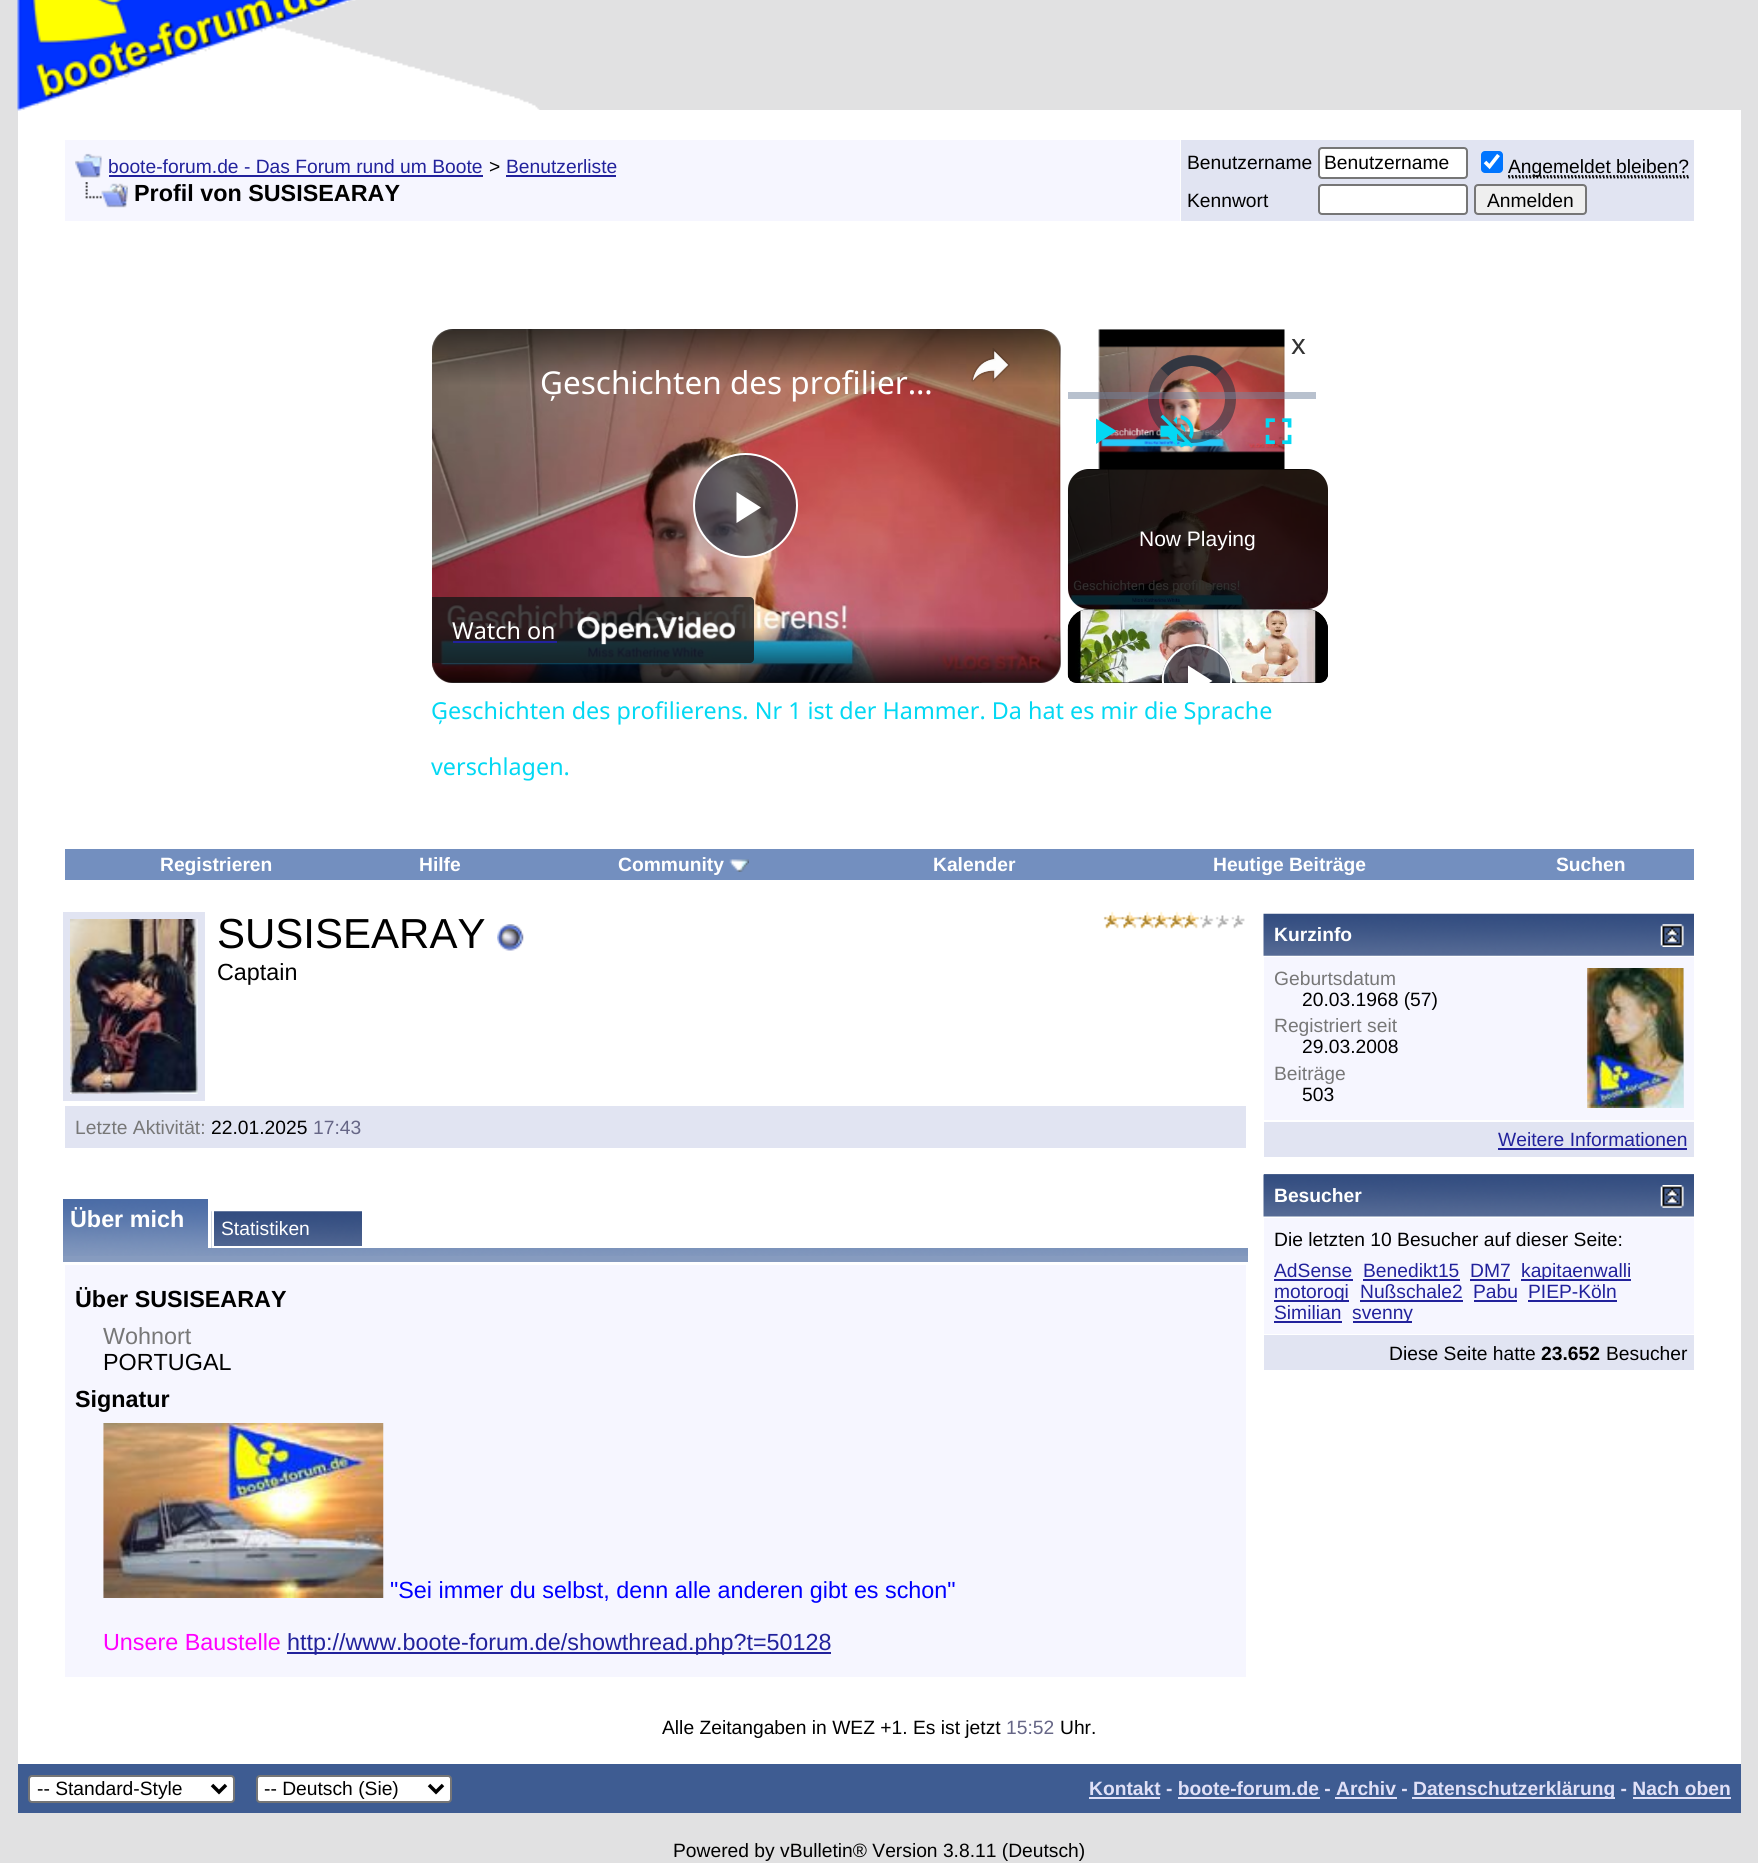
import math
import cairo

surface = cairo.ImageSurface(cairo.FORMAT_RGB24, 1758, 1863)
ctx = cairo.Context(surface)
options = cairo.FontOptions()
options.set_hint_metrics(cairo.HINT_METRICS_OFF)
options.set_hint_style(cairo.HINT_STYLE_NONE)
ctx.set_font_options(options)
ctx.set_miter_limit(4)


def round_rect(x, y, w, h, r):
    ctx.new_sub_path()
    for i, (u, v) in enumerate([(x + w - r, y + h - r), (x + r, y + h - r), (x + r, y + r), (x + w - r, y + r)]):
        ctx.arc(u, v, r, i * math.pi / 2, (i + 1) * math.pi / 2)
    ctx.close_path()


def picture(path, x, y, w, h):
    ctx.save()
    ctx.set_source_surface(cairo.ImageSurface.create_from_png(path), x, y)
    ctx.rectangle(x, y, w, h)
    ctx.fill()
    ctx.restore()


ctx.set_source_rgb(0.882, 0.882, 0.886)
ctx.paint()
ctx.set_source_rgb(1, 1, 1)
ctx.rectangle(18, 110, 1723, 1654)
ctx.fill()
picture("img1.png", 17, 0, 523, 111)
ctx.set_source_rgb(0.961, 0.961, 1)
ctx.rectangle(65, 140, 1115, 81)
ctx.fill()
picture("img2.png", 75, 153, 27, 25)
ctx.select_font_face("Liberation Sans")
ctx.set_font_size(19.25)
ctx.set_source_rgb(0.133, 0.133, 0.612)
ctx.move_to(108, 173)
ctx.show_text("boote-forum.de - Das Forum rund um Boote")
ctx.rectangle(109, 175, 374, 2)
ctx.fill()
ctx.set_source_rgb(0, 0, 0)
ctx.move_to(489, 173)
ctx.show_text(">")
ctx.set_source_rgb(0.133, 0.133, 0.612)
ctx.move_to(506, 173)
ctx.show_text("Benutzerliste")
ctx.rectangle(506, 175, 110, 2)
ctx.fill()
picture("img3.png", 85, 182, 43, 26)
ctx.select_font_face("Liberation Sans", cairo.FONT_SLANT_NORMAL, cairo.FONT_WEIGHT_BOLD)
ctx.set_font_size(23.35)
ctx.set_source_rgb(0, 0, 0)
ctx.move_to(134, 201)
ctx.show_text("Profil von SUSISEARAY")
ctx.set_source_rgb(0.882, 0.894, 0.949)
ctx.rectangle(1181, 140, 513, 81)
ctx.fill()
ctx.select_font_face("Liberation Sans")
ctx.set_font_size(19.25)
ctx.set_source_rgb(0, 0, 0)
ctx.move_to(1187, 169)
ctx.show_text("Benutzername")
ctx.set_source_rgb(1, 1, 1)
round_rect(1319, 148, 148, 30, 3)
ctx.fill_preserve()
ctx.set_source_rgb(0.463, 0.463, 0.463)
ctx.stroke()
ctx.set_source_rgb(0, 0, 0)
ctx.move_to(1324, 169)
ctx.show_text("Benutzername")
ctx.set_source_rgb(0, 0.459, 1)
round_rect(1481, 151, 22, 22, 4)
ctx.fill()
ctx.new_path()
ctx.move_to(1485, 162)
ctx.line_to(1489.5, 166.5)
ctx.line_to(1498.5, 155)
ctx.set_source_rgb(1, 1, 1)
ctx.set_line_width(3.6)
ctx.stroke()
ctx.new_path()
ctx.move_to(1508.5, 177.5)
ctx.line_to(1689, 177.5)
ctx.set_source_rgb(0, 0, 0)
ctx.set_line_width(1.8)
ctx.set_dash([1.75, 1.75])
ctx.stroke()
ctx.new_path()
ctx.move_to(1508, 176)
ctx.line_to(1689, 176)
ctx.stroke()
ctx.move_to(1508, 173)
ctx.show_text("Angemeldet bleiben?")
ctx.move_to(1187, 207)
ctx.show_text("Kennwort")
ctx.set_source_rgb(1, 1, 1)
round_rect(1319, 185, 148, 29, 3)
ctx.fill_preserve()
ctx.set_source_rgb(0.463, 0.463, 0.463)
ctx.set_line_width(2)
ctx.set_dash([])
ctx.stroke()
ctx.set_source_rgb(0.937, 0.937, 0.937)
round_rect(1475, 185, 111, 29, 3)
ctx.fill_preserve()
ctx.set_source_rgb(0.463, 0.463, 0.463)
ctx.stroke()
ctx.set_source_rgb(0, 0, 0)
ctx.move_to(1487, 207)
ctx.show_text("Anmelden")
picture("img5.png", 510, 682, 473, 1)
picture("img4.png", 432, 329, 629, 354)
ctx.set_source_rgba(0.169, 0.2, 0.247, 0.7)
ctx.arc(745.5, 505.5, 51.5, 0, 2 * math.pi)
ctx.fill_preserve()
ctx.set_source_rgb(1, 1, 1)
ctx.stroke()
ctx.new_path()
ctx.move_to(736.5, 492)
ctx.line_to(736.5, 523)
ctx.line_to(761, 507.5)
ctx.close_path()
ctx.fill()
gradient = cairo.LinearGradient(746, 329, 746, 683)
gradient.add_color_stop_rgba(0, 0, 0, 0, 0.6)
gradient.add_color_stop_rgba(0.16, 0, 0, 0, 0)
gradient.add_color_stop_rgba(0.84, 0, 0, 0, 0)
gradient.add_color_stop_rgba(1, 0, 0, 0, 0.8)
ctx.set_source(gradient)
round_rect(432, 329, 629, 354, 21)
ctx.fill()
ctx.select_font_face("Noto Sans")
ctx.set_font_size(31.5)
ctx.set_source_rgb(1, 1, 1)
ctx.move_to(540, 394)
ctx.show_text("Ģeschichten des profilier…")
picture("img6.png", 971, 348, 39, 35)
ctx.set_source_rgba(0.09, 0.09, 0.09, 0.8)
ctx.new_path()
ctx.move_to(432, 597)
ctx.line_to(750, 597)
ctx.curve_to(752, 597, 754, 599, 754, 601)
ctx.line_to(754, 659)
ctx.curve_to(754, 661, 752, 663, 750, 663)
ctx.line_to(432, 663)
ctx.close_path()
ctx.fill()
ctx.set_font_size(23.35)
ctx.set_source_rgb(1, 1, 1)
ctx.move_to(452, 639)
ctx.show_text("Watch on")
ctx.set_source_rgb(0.133, 0.133, 0.612)
ctx.rectangle(453, 641, 104, 2)
ctx.fill()
picture("img7.png", 577, 616, 158, 29)
picture("img8.png", 1098, 329, 187, 140)
ctx.arc(1192, 399, 38.5, 0, 2 * math.pi)
ctx.set_source_rgba(0.169, 0.2, 0.247, 0.59)
ctx.set_line_width(11)
ctx.stroke()
ctx.new_path()
ctx.move_to(1164.5, 372)
ctx.curve_to(1179.5, 357, 1204, 357, 1219, 372)
ctx.set_line_width(10.5)
ctx.stroke()
ctx.new_path()
ctx.move_to(1164.5, 372)
ctx.curve_to(1179.5, 357, 1204, 357, 1219, 372)
ctx.stroke()
ctx.set_source_rgba(0.451, 0.522, 0.624, 0.5)
ctx.rectangle(1068, 392, 248, 7)
ctx.fill()
ctx.set_source_rgb(0.012, 0.847, 0.953)
ctx.new_path()
ctx.move_to(1096, 418.5)
ctx.line_to(1096, 444)
ctx.line_to(1116.5, 431)
ctx.close_path()
ctx.fill()
picture("img9.png", 1160, 414, 34, 34)
picture("img10.png", 1265, 418, 27, 27)
ctx.set_font_size(28)
ctx.set_source_rgb(0.2, 0.2, 0.2)
ctx.move_to(1291, 354)
ctx.show_text("x")
ctx.set_source_rgb(0, 0, 0)
round_rect(1068, 469, 260, 140, 21)
ctx.fill()
picture("img11.png", 1067, 469, 261, 140)
ctx.select_font_face("Liberation Sans")
ctx.set_font_size(21)
ctx.set_source_rgb(1, 1, 1)
ctx.move_to(1139, 546)
ctx.show_text("Now Playing")
ctx.save()
round_rect(1061, 329, 267, 354, 9)
ctx.clip()
ctx.set_source_rgb(0, 0, 0)
ctx.new_path()
ctx.move_to(1089, 609)
ctx.line_to(1307, 609)
ctx.curve_to(1318.5, 609, 1328, 618.5, 1328, 630)
ctx.line_to(1328, 674)
ctx.curve_to(1328, 679, 1324, 683, 1319, 683)
ctx.line_to(1077, 683)
ctx.curve_to(1072, 683, 1068, 679, 1068, 674)
ctx.line_to(1068, 630)
ctx.curve_to(1068, 618.5, 1077.5, 609, 1089, 609)
ctx.close_path()
ctx.fill()
ctx.restore()
picture("img12.png", 1067, 609, 261, 74)
ctx.select_font_face("Noto Sans")
ctx.set_font_size(23.35)
ctx.set_source_rgb(0.012, 0.847, 0.953)
ctx.move_to(431, 719)
ctx.show_text("Ģeschichten des profilierens. Nr 1 ist der Hammer. Da hat es mir die Sprache")
ctx.save()
ctx.rectangle(1068, 469, 260, 214)
ctx.clip()
ctx.set_source_rgba(0.169, 0.2, 0.247, 0.7)
ctx.arc(1197, 679, 35, 0, 2 * math.pi)
ctx.fill()
ctx.restore()
ctx.set_source_rgb(1, 1, 1)
ctx.new_path()
ctx.move_to(1197, 644)
ctx.curve_to(1218, 644, 1234, 663, 1232, 683)
ctx.line_to(1230, 683)
ctx.curve_to(1234, 649, 1189, 632, 1170, 661)
ctx.curve_to(1165, 667, 1163, 675, 1164, 683)
ctx.line_to(1162, 683)
ctx.curve_to(1160, 663, 1176, 644, 1197, 644)
ctx.close_path()
ctx.fill()
ctx.new_path()
ctx.move_to(1188, 665.5)
ctx.line_to(1212.5, 681)
ctx.line_to(1209, 683)
ctx.line_to(1188, 683)
ctx.close_path()
ctx.fill()
ctx.set_source_rgb(0.012, 0.847, 0.953)
ctx.move_to(431, 775)
ctx.show_text("verschlagen.")
ctx.set_source_rgb(0.451, 0.561, 0.749)
ctx.rectangle(65, 849, 1629, 31)
ctx.fill()
ctx.select_font_face("Liberation Sans", cairo.FONT_SLANT_NORMAL, cairo.FONT_WEIGHT_BOLD)
ctx.set_font_size(19.25)
ctx.set_source_rgb(1, 1, 1)
ctx.move_to(160, 871)
ctx.show_text("Registrieren")
ctx.move_to(419, 871)
ctx.show_text("Hilfe")
ctx.move_to(618, 871)
ctx.show_text("Community")
picture("img13.png", 729, 859, 20, 13)
ctx.move_to(933, 871)
ctx.show_text("Kalender")
ctx.move_to(1213, 871)
ctx.show_text("Heutige Beiträge")
ctx.move_to(1556, 871)
ctx.show_text("Suchen")
ctx.set_source_rgb(0.882, 0.894, 0.949)
ctx.rectangle(63, 912, 142, 189)
ctx.fill()
picture("img14.png", 70, 919, 128, 175)
ctx.select_font_face("Liberation Sans")
ctx.set_font_size(42)
ctx.set_source_rgb(0, 0, 0)
ctx.move_to(217, 948)
ctx.show_text("SUSISEARAY")
picture("img15.png", 497, 924, 27, 27)
picture("img16.png", 1103, 911, 142, 18)
ctx.set_font_size(23.35)
ctx.move_to(217, 980)
ctx.show_text("Captain")
ctx.set_source_rgb(0.882, 0.894, 0.949)
ctx.rectangle(65, 1106, 1181, 42)
ctx.fill()
ctx.set_font_size(19.25)
ctx.set_source_rgb(0.467, 0.467, 0.467)
ctx.move_to(75, 1134)
ctx.show_text("Letzte Aktivität:")
ctx.set_source_rgb(0, 0, 0)
ctx.move_to(211, 1134)
ctx.show_text("22.01.2025")
ctx.set_source_rgb(0.4, 0.4, 0.525)
ctx.move_to(313, 1134)
ctx.show_text("17:43")
picture("img17.png", 63, 1199, 145, 49)
ctx.select_font_face("Liberation Sans", cairo.FONT_SLANT_NORMAL, cairo.FONT_WEIGHT_BOLD)
ctx.set_font_size(23.35)
ctx.set_source_rgb(1, 1, 1)
ctx.move_to(70, 1227)
ctx.show_text("Über mich")
picture("img18.png", 211, 1211, 151, 37)
ctx.rectangle(213, 1210, 150, 37)
ctx.set_line_width(2)
ctx.stroke()
ctx.select_font_face("Liberation Sans")
ctx.set_font_size(19.25)
ctx.move_to(221, 1235)
ctx.show_text("Statistiken")
ctx.set_source_rgb(0.525, 0.608, 0.749)
ctx.rectangle(63, 1256, 1185, 6)
ctx.fill()
picture("img19.png", 63, 1248, 1185, 8)
ctx.set_source_rgb(0.961, 0.961, 1)
ctx.rectangle(65, 1265, 1181, 412)
ctx.fill()
ctx.select_font_face("Liberation Sans", cairo.FONT_SLANT_NORMAL, cairo.FONT_WEIGHT_BOLD)
ctx.set_font_size(23.35)
ctx.set_source_rgb(0, 0, 0)
ctx.move_to(75, 1307)
ctx.show_text("Über SUSISEARAY")
ctx.select_font_face("Liberation Sans")
ctx.set_source_rgb(0.467, 0.467, 0.467)
ctx.move_to(103, 1344)
ctx.show_text("Wohnort")
ctx.set_source_rgb(0, 0, 0)
ctx.move_to(103, 1370)
ctx.show_text("PORTUGAL")
ctx.select_font_face("Liberation Sans", cairo.FONT_SLANT_NORMAL, cairo.FONT_WEIGHT_BOLD)
ctx.move_to(75, 1407)
ctx.show_text("Signatur")
picture("img20.png", 103, 1423, 281, 175)
ctx.select_font_face("Liberation Sans")
ctx.set_source_rgb(0, 0, 1)
ctx.move_to(390, 1598)
ctx.show_text("\"Sei immer du selbst, denn alle anderen gibt es schon\"")
ctx.set_source_rgb(1, 0, 1)
ctx.move_to(103, 1650)
ctx.show_text("Unsere Baustelle")
ctx.set_source_rgb(0.133, 0.133, 0.612)
ctx.rectangle(287, 1652, 544, 2)
ctx.fill()
ctx.move_to(287, 1650)
ctx.show_text("http://www.boote-forum.de/showthread.php?t=50128")
picture("img21.png", 1263, 913, 431, 43)
ctx.select_font_face("Liberation Sans", cairo.FONT_SLANT_NORMAL, cairo.FONT_WEIGHT_BOLD)
ctx.set_font_size(19.25)
ctx.set_source_rgb(1, 1, 1)
ctx.move_to(1274, 941)
ctx.show_text("Kurzinfo")
picture("img22.png", 1660, 924, 24, 23)
ctx.set_source_rgb(0.961, 0.961, 1)
ctx.rectangle(1264, 957, 430, 163)
ctx.fill()
ctx.select_font_face("Liberation Sans")
ctx.set_source_rgb(0.467, 0.467, 0.467)
ctx.move_to(1274, 985)
ctx.show_text("Geburtsdatum")
ctx.set_source_rgb(0, 0, 0)
ctx.move_to(1302, 1006)
ctx.show_text("20.03.1968 (57)")
ctx.set_source_rgb(0.467, 0.467, 0.467)
ctx.move_to(1274, 1032)
ctx.show_text("Registriert seit")
ctx.set_source_rgb(0, 0, 0)
ctx.move_to(1302, 1053)
ctx.show_text("29.03.2008")
ctx.set_source_rgb(0.467, 0.467, 0.467)
ctx.move_to(1274, 1080)
ctx.show_text("Beiträge")
ctx.set_source_rgb(0, 0, 0)
ctx.move_to(1302, 1101)
ctx.show_text("503")
ctx.set_source_rgb(0.882, 0.894, 0.949)
ctx.rectangle(1587, 968, 97, 140)
ctx.fill()
picture("img23.png", 1587, 968, 97, 140)
ctx.rectangle(1264, 1122, 430, 35)
ctx.fill()
ctx.set_source_rgb(0.133, 0.133, 0.612)
ctx.move_to(1498, 1146)
ctx.show_text("Weitere Informationen")
ctx.rectangle(1498, 1148, 189, 2)
ctx.fill()
ctx.set_source_rgb(0.361, 0.439, 0.6)
ctx.rectangle(1264, 1174, 430, 1)
ctx.fill()
picture("img24.png", 1263, 1174, 431, 43)
ctx.select_font_face("Liberation Sans", cairo.FONT_SLANT_NORMAL, cairo.FONT_WEIGHT_BOLD)
ctx.set_source_rgb(1, 1, 1)
ctx.move_to(1274, 1202)
ctx.show_text("Besucher")
picture("img25.png", 1660, 1185, 24, 23)
ctx.set_source_rgb(0.961, 0.961, 1)
ctx.rectangle(1264, 1218, 430, 116)
ctx.fill()
ctx.select_font_face("Liberation Sans")
ctx.set_source_rgb(0, 0, 0)
ctx.move_to(1274, 1246)
ctx.show_text("Die letzten 10 Besucher auf dieser Seite:")
ctx.set_source_rgb(0.133, 0.133, 0.612)
ctx.move_to(1274, 1277)
ctx.show_text("AdSense")
ctx.rectangle(1274, 1279, 79, 2)
ctx.fill()
ctx.move_to(1363, 1277)
ctx.show_text("Benedikt15")
ctx.rectangle(1363, 1279, 97, 2)
ctx.fill()
ctx.move_to(1470, 1277)
ctx.show_text("DM7")
ctx.rectangle(1470, 1279, 40, 2)
ctx.fill()
ctx.rectangle(1521, 1279, 110, 2)
ctx.fill()
ctx.move_to(1521, 1277)
ctx.show_text("kapitaenwalli")
ctx.rectangle(1274, 1300, 75, 2)
ctx.fill()
ctx.move_to(1274, 1298)
ctx.show_text("motorogi")
ctx.move_to(1360, 1298)
ctx.show_text("Nußschale2")
ctx.rectangle(1360, 1300, 103, 2)
ctx.fill()
ctx.move_to(1473, 1298)
ctx.show_text("Pabu")
ctx.rectangle(1474, 1300, 43, 2)
ctx.fill()
ctx.move_to(1528, 1298)
ctx.show_text("PIEP-Köln")
ctx.rectangle(1528, 1300, 89, 2)
ctx.fill()
ctx.move_to(1274, 1319)
ctx.show_text("Similian")
ctx.rectangle(1274, 1321, 68, 2)
ctx.fill()
ctx.rectangle(1353, 1321, 59, 2)
ctx.fill()
ctx.move_to(1352, 1319)
ctx.show_text("svenny")
ctx.set_source_rgb(0.882, 0.894, 0.949)
ctx.rectangle(1264, 1335, 430, 35)
ctx.fill()
ctx.set_source_rgb(0, 0, 0)
ctx.move_to(1389, 1360)
ctx.show_text("Diese Seite hatte")
ctx.select_font_face("Liberation Sans", cairo.FONT_SLANT_NORMAL, cairo.FONT_WEIGHT_BOLD)
ctx.move_to(1541, 1360)
ctx.show_text("23.652")
ctx.select_font_face("Liberation Sans")
ctx.move_to(1606, 1360)
ctx.show_text("Besucher")
ctx.move_to(662, 1734)
ctx.show_text("Alle Zeitangaben in WEZ +1. Es ist jetzt")
ctx.set_source_rgb(0.4, 0.4, 0.525)
ctx.move_to(1006, 1734)
ctx.show_text("15:52")
ctx.set_source_rgb(0, 0, 0)
ctx.move_to(1060, 1734)
ctx.show_text("Uhr.")
ctx.set_source_rgb(0.243, 0.361, 0.573)
ctx.rectangle(18, 1764, 1723, 49)
ctx.fill()
ctx.set_source_rgb(1, 1, 1)
round_rect(29, 1776, 205, 26, 3)
ctx.fill_preserve()
ctx.set_source_rgb(0.463, 0.463, 0.463)
ctx.stroke()
ctx.new_path()
ctx.move_to(212, 1785)
ctx.line_to(219, 1792)
ctx.line_to(226, 1785)
ctx.set_source_rgb(0, 0, 0)
ctx.set_line_width(3.5)
ctx.stroke()
ctx.move_to(37, 1795)
ctx.show_text("-- Standard-Style")
ctx.set_source_rgb(1, 1, 1)
round_rect(257, 1776, 194, 26, 3)
ctx.fill_preserve()
ctx.set_source_rgb(0.463, 0.463, 0.463)
ctx.set_line_width(2)
ctx.stroke()
ctx.new_path()
ctx.move_to(429, 1785)
ctx.line_to(436, 1792)
ctx.line_to(443, 1785)
ctx.set_source_rgb(0, 0, 0)
ctx.set_line_width(3.5)
ctx.stroke()
ctx.move_to(264, 1795)
ctx.show_text("-- Deutsch (Sie)")
ctx.select_font_face("Liberation Sans", cairo.FONT_SLANT_NORMAL, cairo.FONT_WEIGHT_BOLD)
ctx.set_source_rgb(0.878, 0.878, 0.965)
ctx.move_to(1089, 1795)
ctx.show_text("Kontakt - boote-forum.de - Archiv -")
ctx.rectangle(1089, 1797, 71, 2)
ctx.fill()
ctx.rectangle(1178, 1797, 142, 2)
ctx.fill()
ctx.rectangle(1335, 1797, 62, 2)
ctx.fill()
ctx.rectangle(1412, 1797, 203, 2)
ctx.fill()
ctx.move_to(1413, 1795)
ctx.show_text("Datenschutzerklärung - Nach oben")
ctx.rectangle(1633, 1797, 98, 2)
ctx.fill()
ctx.select_font_face("Liberation Sans")
ctx.set_source_rgb(0, 0, 0)
ctx.move_to(673, 1857)
ctx.show_text("Powered by vBulletin® Version 3.8.11 (Deutsch)")
surface.write_to_png("page.png")
